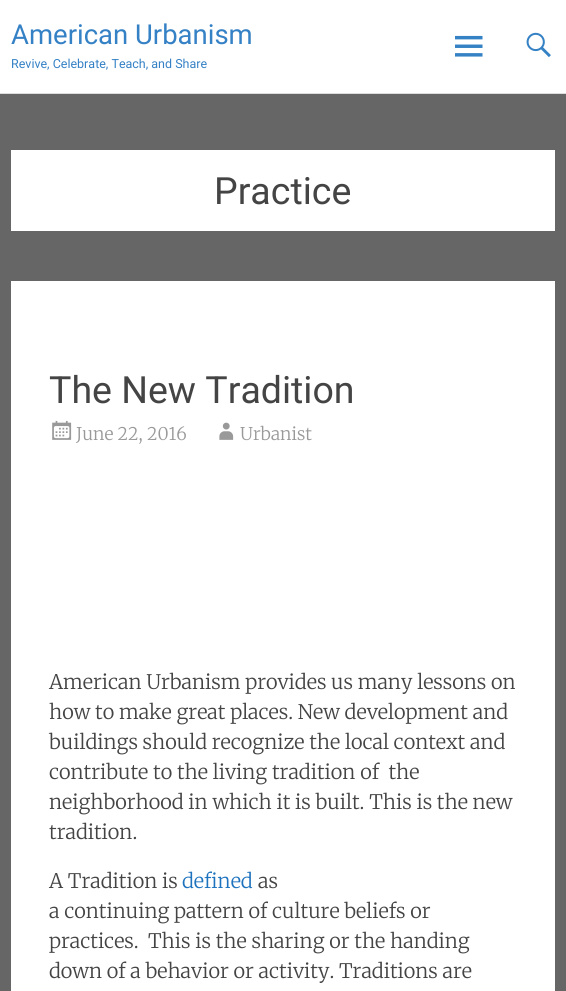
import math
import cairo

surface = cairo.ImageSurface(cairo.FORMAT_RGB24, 566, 991)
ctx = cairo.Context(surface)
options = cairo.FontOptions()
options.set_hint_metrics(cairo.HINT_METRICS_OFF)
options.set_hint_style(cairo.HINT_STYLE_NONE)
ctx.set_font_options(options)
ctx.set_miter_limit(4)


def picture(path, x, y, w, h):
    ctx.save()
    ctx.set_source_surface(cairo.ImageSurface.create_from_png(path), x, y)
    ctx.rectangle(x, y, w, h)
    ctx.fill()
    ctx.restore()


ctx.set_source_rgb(1, 1, 1)
ctx.paint()
ctx.set_source_rgb(0.867, 0.867, 0.867)
ctx.rectangle(0, 93, 566, 1)
ctx.fill()
ctx.select_font_face("Roboto")
ctx.set_font_size(27.5)
ctx.set_source_rgb(0.208, 0.506, 0.773)
ctx.move_to(11, 44)
ctx.show_text("American Urbanism")
ctx.set_font_size(12.5)
ctx.move_to(11, 68)
ctx.show_text("Revive, Celebrate, Teach, and Share")
picture("img1.png", 455, 35, 28, 22)
picture("img2.png", 526, 32, 25, 26)
ctx.set_source_rgb(0.4, 0.4, 0.4)
ctx.rectangle(0, 94, 566, 897)
ctx.fill()
ctx.set_source_rgb(1, 1, 1)
ctx.rectangle(11, 150, 544, 81)
ctx.fill()
ctx.set_font_size(37.5)
ctx.set_source_rgb(0.267, 0.267, 0.267)
ctx.move_to(214, 204)
ctx.show_text("Practice")
ctx.set_source_rgb(1, 1, 1)
ctx.rectangle(11, 281, 544, 710)
ctx.fill()
ctx.set_source_rgb(0.267, 0.267, 0.267)
ctx.move_to(49, 403)
ctx.show_text("The New Tradition")
picture("img3.png", 52, 420, 20, 20)
ctx.select_font_face("Merriweather Light")
ctx.set_font_size(17.5)
ctx.set_source_rgb(0.6, 0.6, 0.6)
ctx.move_to(76, 440)
ctx.show_text("June 22, 2016")
picture("img4.png", 219, 422, 15, 18)
ctx.move_to(240, 440)
ctx.show_text("Urbanist")
ctx.set_font_size(20)
ctx.set_source_rgb(0.267, 0.267, 0.267)
ctx.move_to(49, 689)
ctx.show_text("American Urbanism provides us many lessons on")
ctx.move_to(49, 719)
ctx.show_text("how to make great places. New development and")
ctx.move_to(49, 749)
ctx.show_text("buildings should recognize the local context and")
ctx.move_to(49, 779)
ctx.show_text("contribute to the living tradition of  the")
ctx.move_to(49, 809)
ctx.show_text("neighborhood in which it is built. This is the new")
ctx.move_to(49, 839)
ctx.show_text("tradition.")
ctx.move_to(49, 888)
ctx.show_text("A Tradition is")
ctx.set_source_rgb(0.118, 0.451, 0.745)
ctx.move_to(182, 888)
ctx.show_text("defined")
ctx.set_source_rgb(0.267, 0.267, 0.267)
ctx.move_to(258, 888)
ctx.show_text("as")
ctx.move_to(49, 918)
ctx.show_text("a continuing pattern of culture beliefs or")
ctx.move_to(49, 948)
ctx.show_text("practices.")
ctx.move_to(148, 948)
ctx.show_text("This is the sharing or the handing")
ctx.move_to(49, 978)
ctx.show_text("down of a behavior or activity. Traditions are")
surface.write_to_png("page.png")
